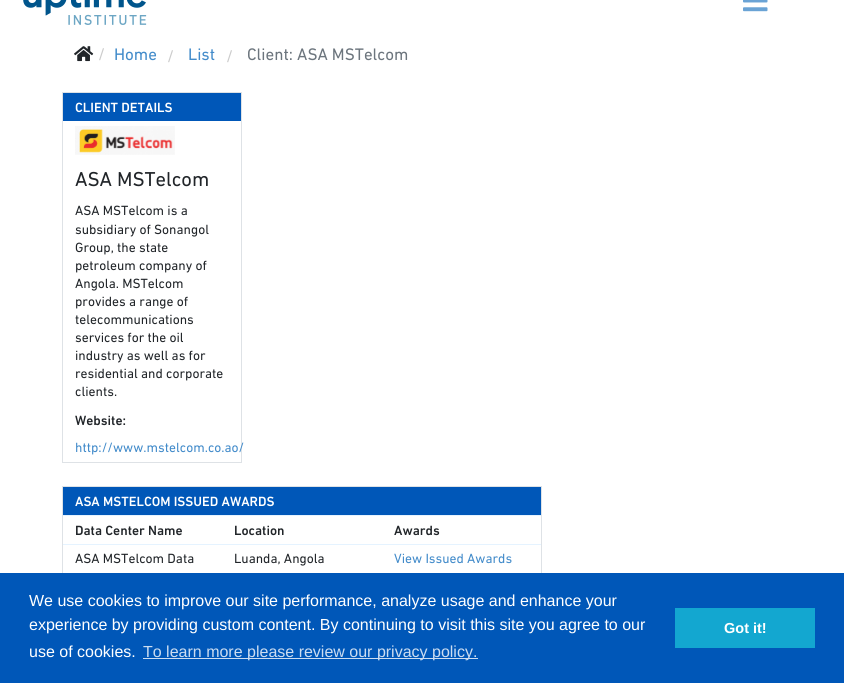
import math
import cairo

surface = cairo.ImageSurface(cairo.FORMAT_RGB24, 844, 683)
ctx = cairo.Context(surface)
options = cairo.FontOptions()
options.set_hint_metrics(cairo.HINT_METRICS_OFF)
options.set_hint_style(cairo.HINT_STYLE_NONE)
ctx.set_font_options(options)
ctx.set_miter_limit(4)


def picture(path, x, y, w, h):
    ctx.save()
    ctx.set_source_surface(cairo.ImageSurface.create_from_png(path), x, y)
    ctx.rectangle(x, y, w, h)
    ctx.fill()
    ctx.restore()


ctx.set_source_rgb(1, 1, 1)
ctx.paint()
picture("img1.png", 23, 0, 124, 25)
picture("img2.png", 743, 0, 25, 12)
picture("img3.png", 74, 46, 20, 16)
ctx.select_font_face("DIN Next")
ctx.set_font_size(17)
ctx.set_source_rgb(0.8, 0.8, 0.8)
ctx.move_to(98, 60)
ctx.show_text("/")
ctx.set_source_rgb(0.259, 0.545, 0.792)
ctx.move_to(114, 60)
ctx.show_text("Home")
ctx.set_source_rgb(0.8, 0.8, 0.8)
ctx.move_to(167, 62)
ctx.show_text("/")
ctx.set_source_rgb(0.259, 0.545, 0.792)
ctx.move_to(188, 60)
ctx.show_text("List")
ctx.set_source_rgb(0.8, 0.8, 0.8)
ctx.move_to(226, 62)
ctx.show_text("/")
ctx.set_source_rgb(0.424, 0.459, 0.49)
ctx.move_to(247, 60)
ctx.show_text("Client: ASA MSTelcom")
ctx.rectangle(62.5, 92.5, 179, 370)
ctx.set_source_rgb(0.871, 0.886, 0.902)
ctx.set_line_width(1)
ctx.stroke()
ctx.set_source_rgb(0, 0.341, 0.722)
ctx.rectangle(63, 93, 178, 28)
ctx.fill()
ctx.select_font_face("DIN Next Medium")
ctx.set_font_size(13.6)
ctx.set_source_rgb(1, 1, 1)
ctx.move_to(75, 112)
ctx.show_text("CLIENT DETAILS")
picture("img4.png", 75, 126, 100, 29)
ctx.select_font_face("DIN Next")
ctx.set_font_size(20.5)
ctx.set_source_rgb(0.129, 0.145, 0.161)
ctx.move_to(75, 186)
ctx.show_text("ASA MSTelcom")
ctx.set_font_size(13.6)
ctx.move_to(75, 215)
ctx.show_text("ASA MSTelcom is a")
ctx.move_to(75, 234)
ctx.show_text("subsidiary of Sonangol")
ctx.move_to(75, 252)
ctx.show_text("Group, the state")
ctx.move_to(75, 270)
ctx.show_text("petroleum company of")
ctx.move_to(75, 288)
ctx.show_text("Angola. MSTelcom")
ctx.move_to(75, 306)
ctx.show_text("provides a range of")
ctx.move_to(75, 324)
ctx.show_text("telecommunications")
ctx.move_to(75, 342)
ctx.show_text("services for the oil")
ctx.move_to(75, 360)
ctx.show_text("industry as well as for")
ctx.move_to(75, 378)
ctx.show_text("residential and corporate")
ctx.move_to(75, 396)
ctx.show_text("clients.")
ctx.select_font_face("DIN Next Medium")
ctx.move_to(75, 425)
ctx.show_text("Website:")
ctx.select_font_face("DIN Next")
ctx.set_source_rgb(0.259, 0.545, 0.792)
ctx.move_to(75, 452)
ctx.show_text("http://www.mstelcom.co.ao/")
ctx.rectangle(62.5, 486.5, 479, 106)
ctx.set_source_rgb(0.871, 0.886, 0.902)
ctx.stroke()
ctx.set_source_rgb(0, 0.341, 0.722)
ctx.rectangle(63, 487, 478, 28)
ctx.fill()
ctx.set_source_rgb(0.898, 0.953, 1)
ctx.rectangle(63, 515, 478, 1)
ctx.fill()
ctx.select_font_face("DIN Next Medium")
ctx.set_source_rgb(1, 1, 1)
ctx.move_to(75, 506)
ctx.show_text("ASA MSTELCOM ISSUED AWARDS")
ctx.set_source_rgb(0.898, 0.953, 1)
ctx.rectangle(63, 544, 478, 1)
ctx.fill()
ctx.set_source_rgb(0.129, 0.145, 0.161)
ctx.move_to(75, 535)
ctx.show_text("Data Center Name")
ctx.move_to(234, 535)
ctx.show_text("Location")
ctx.move_to(394, 535)
ctx.show_text("Awards")
ctx.select_font_face("DIN Next")
ctx.move_to(75, 563)
ctx.show_text("ASA MSTelcom Data")
ctx.move_to(234, 563)
ctx.show_text("Luanda, Angola")
ctx.set_source_rgb(0.259, 0.545, 0.792)
ctx.move_to(394, 563)
ctx.show_text("View Issued Awards")
ctx.set_source_rgb(0, 0.341, 0.722)
ctx.rectangle(0, 573, 844, 110)
ctx.fill()
ctx.select_font_face("Liberation Sans")
ctx.set_font_size(16)
ctx.set_source_rgb(1, 1, 1)
ctx.move_to(29, 606)
ctx.show_text("We use cookies to improve our site performance, analyze usage and enhance your")
ctx.move_to(29, 630)
ctx.show_text("experience by providing custom content. By continuing to visit this site you agree to our")
ctx.move_to(29, 657)
ctx.show_text("use of cookies.")
ctx.set_source_rgb(0.8, 0.867, 0.945)
ctx.rectangle(143, 658, 335, 1)
ctx.fill()
ctx.move_to(143, 657)
ctx.show_text("To learn more please review our privacy policy.")
ctx.set_source_rgb(0.078, 0.655, 0.816)
ctx.rectangle(675, 608, 140, 40)
ctx.fill()
ctx.select_font_face("Liberation Sans", cairo.FONT_SLANT_NORMAL, cairo.FONT_WEIGHT_BOLD)
ctx.set_font_size(14.5)
ctx.set_source_rgb(1, 1, 1)
ctx.move_to(724, 633)
ctx.show_text("Got it!")
surface.write_to_png("page.png")
